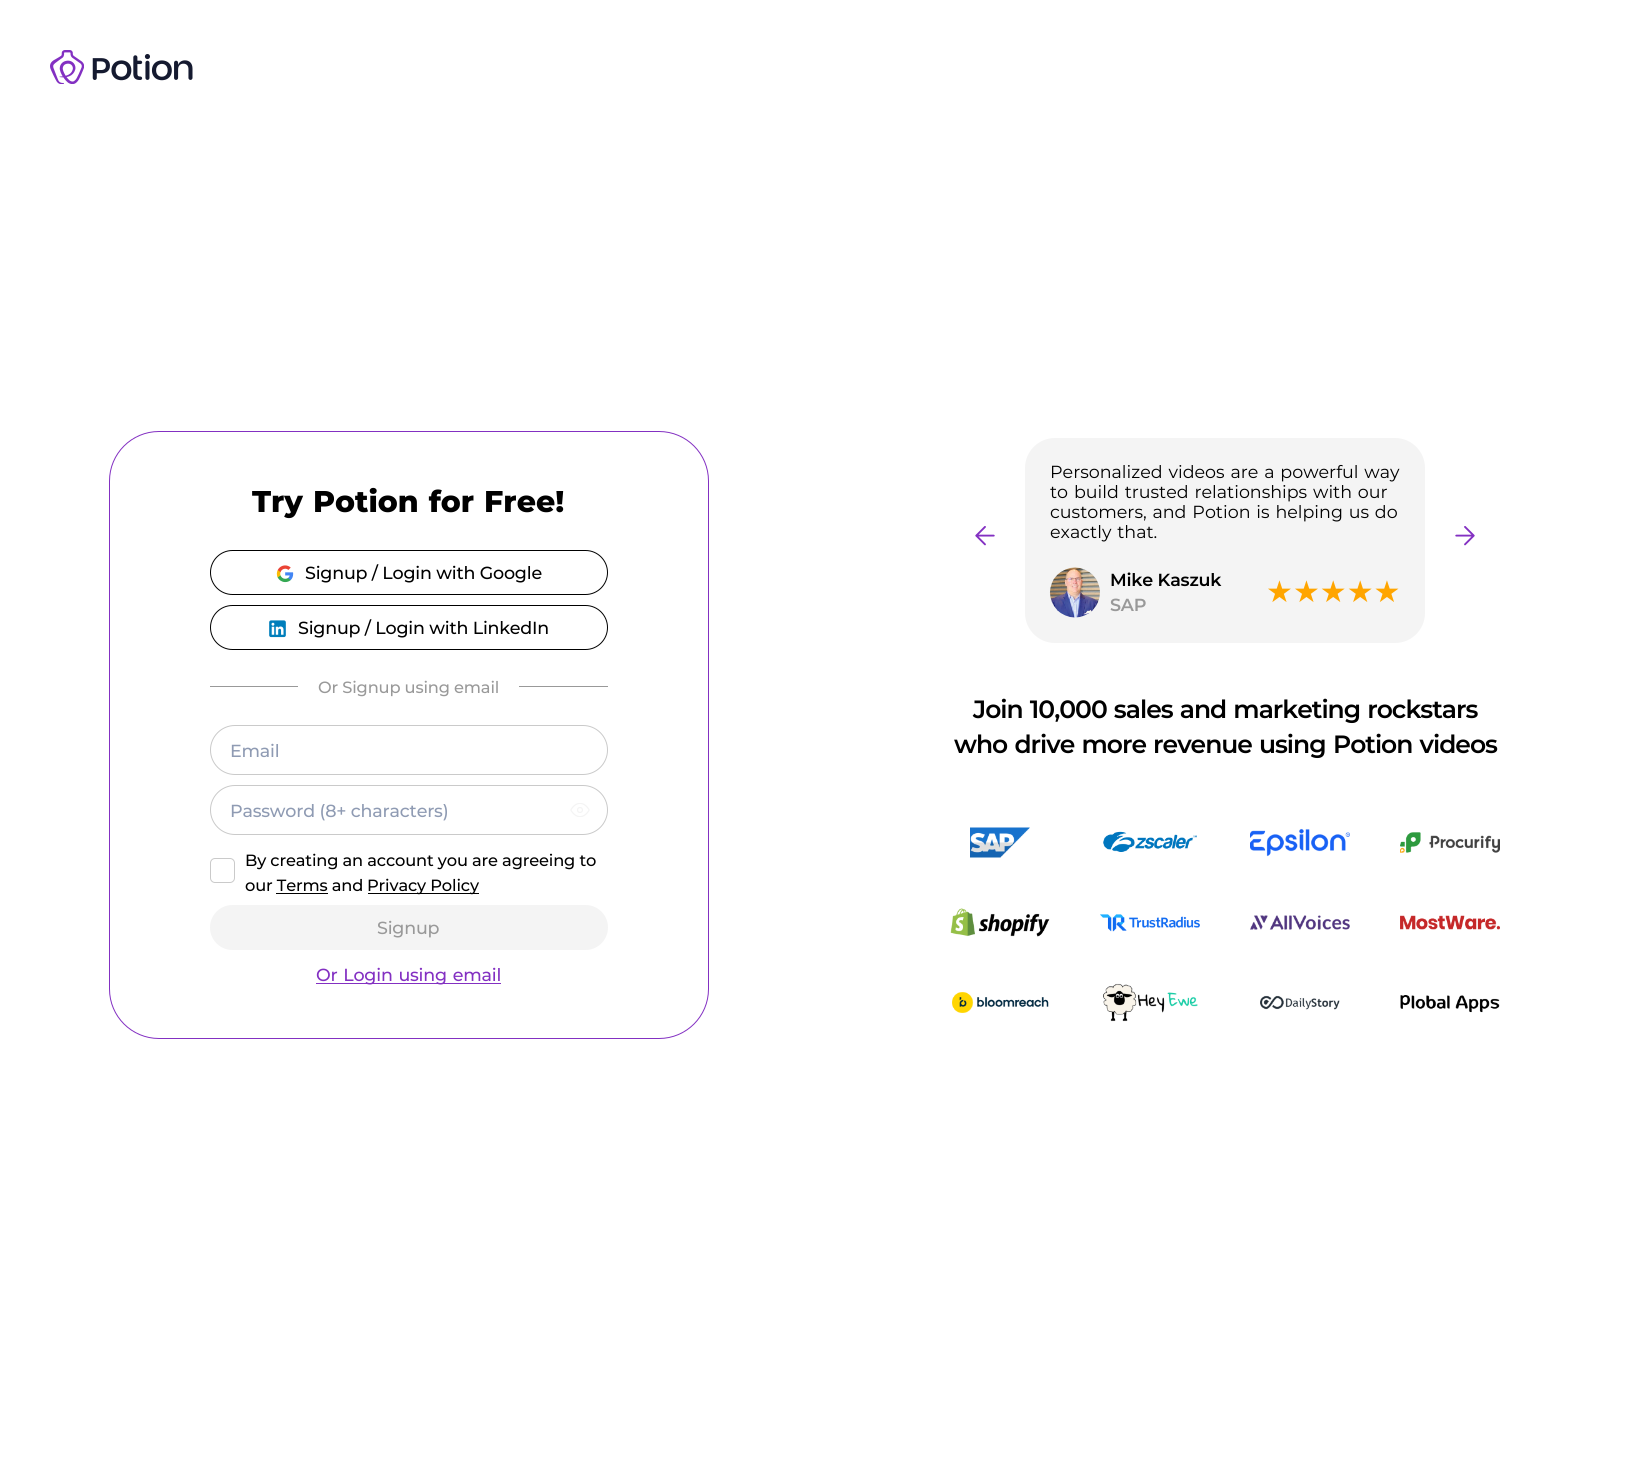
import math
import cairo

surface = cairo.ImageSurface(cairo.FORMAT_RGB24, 1633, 1468)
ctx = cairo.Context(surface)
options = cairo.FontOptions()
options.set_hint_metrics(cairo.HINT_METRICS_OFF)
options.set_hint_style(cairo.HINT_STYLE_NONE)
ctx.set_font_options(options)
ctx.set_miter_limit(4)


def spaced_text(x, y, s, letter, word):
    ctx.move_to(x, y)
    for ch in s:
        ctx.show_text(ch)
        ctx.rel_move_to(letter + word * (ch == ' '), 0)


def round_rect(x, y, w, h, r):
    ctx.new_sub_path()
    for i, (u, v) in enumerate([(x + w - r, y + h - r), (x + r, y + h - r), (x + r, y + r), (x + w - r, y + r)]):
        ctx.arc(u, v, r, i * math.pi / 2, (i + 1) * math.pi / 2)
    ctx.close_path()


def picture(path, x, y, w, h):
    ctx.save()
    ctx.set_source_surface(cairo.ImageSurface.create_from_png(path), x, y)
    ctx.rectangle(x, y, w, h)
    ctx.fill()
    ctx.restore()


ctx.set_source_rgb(1, 1, 1)
ctx.paint()
picture("img1.png", 50, 50, 143, 34)
round_rect(109.5, 431.5, 599, 607, 49.5)
ctx.set_source_rgb(0.514, 0.188, 0.761)
ctx.set_line_width(1)
ctx.stroke()
ctx.select_font_face("Montserrat ExtraBold")
ctx.set_font_size(30)
ctx.set_source_rgb(0, 0, 0)
spaced_text(252, 512, "Try Potion for Free!", 0, 1.25)
round_rect(210.5, 550.5, 397, 44, 22)
ctx.stroke()
picture("img4.png", 285, 572, 9, 9)
picture("img5.png", 277, 575, 14, 8)
picture("img3.png", 276, 570, 5, 8)
picture("img2.png", 277, 565, 14, 7)
ctx.select_font_face("Montserrat Medium")
ctx.set_font_size(17.5)
spaced_text(305, 579, "Signup / Login with Google", -0.2, 0)
round_rect(210.5, 605.5, 397, 44, 22)
ctx.stroke()
picture("img6.png", 269, 620, 17, 18)
picture("img7.png", 271, 622, 13, 13)
spaced_text(298, 634, "Signup / Login with LinkedIn", -0.2, 0)
ctx.set_source_rgb(0.6, 0.6, 0.6)
ctx.rectangle(210, 686, 88, 1)
ctx.fill()
ctx.set_font_size(16.25)
spaced_text(318, 693, "Or Signup using email", -0.15, 0)
ctx.rectangle(519, 686, 89, 1)
ctx.fill()
round_rect(210.5, 725.5, 397, 49, 24.5)
ctx.set_source_rgb(0.792, 0.792, 0.792)
ctx.stroke()
ctx.set_font_size(17.5)
ctx.set_source_rgb(0.561, 0.608, 0.702)
spaced_text(230, 757, "Email", -0.2, 0)
round_rect(210.5, 785.5, 397, 49, 24.5)
ctx.set_source_rgb(0.792, 0.792, 0.792)
ctx.stroke()
ctx.set_source_rgb(0.561, 0.608, 0.702)
spaced_text(230, 817, "Password (8+ characters)", -0.2, 0)
picture("img8.png", 570, 803, 20, 14)
round_rect(210.5, 858.5, 24, 24, 4.5)
ctx.set_source_rgb(0.792, 0.792, 0.792)
ctx.stroke()
ctx.set_font_size(16.25)
ctx.set_source_rgb(0, 0, 0)
spaced_text(245, 866, "By creating an account you are agreeing to", -0.15, 0)
spaced_text(245, 891, "our Terms and", -0.15, 0)
ctx.rectangle(368, 893, 111, 1)
ctx.fill()
spaced_text(367, 891, "Privacy Policy", -0.15, 0)
ctx.rectangle(276, 893, 52, 1)
ctx.fill()
ctx.set_source_rgb(0.957, 0.957, 0.957)
round_rect(210, 905, 398, 45, 22.5)
ctx.fill()
ctx.set_font_size(17.5)
ctx.set_source_rgb(0.6, 0.6, 0.6)
spaced_text(377, 934, "Signup", -0.2, 0)
ctx.set_source_rgb(0.514, 0.188, 0.761)
ctx.rectangle(316, 983, 185, 1)
ctx.fill()
spaced_text(316, 981, "Or Login using email", -0.2, 1.25)
picture("img9.png", 975, 526, 20, 20)
ctx.set_source_rgb(0.957, 0.957, 0.957)
round_rect(1025, 438, 400, 205, 30)
ctx.fill()
ctx.select_font_face("Montserrat")
ctx.set_source_rgb(0, 0, 0)
spaced_text(1050, 478, "Personalized videos are a powerful way", 0, 1.25)
spaced_text(1050, 498, "to build trusted relationships with our", 0, 1.25)
spaced_text(1050, 518, "customers, and Potion is helping us do", 0, 1.25)
spaced_text(1050, 538, "exactly that.", 0, 1.25)
picture("img10.png", 1049, 567, 51, 51)
ctx.select_font_face("Montserrat SemiBold")
spaced_text(1110, 586, "Mike Kaszuk", -0.2, 0)
ctx.set_source_rgb(0.6, 0.6, 0.6)
spaced_text(1110, 611, "SAP", -0.2, 0)
ctx.select_font_face("DejaVu Sans")
ctx.set_font_size(30)
ctx.set_source_rgb(1, 0.647, 0)
ctx.move_to(1266, 602)
ctx.show_text("★★★★★")
picture("img11.png", 1455, 526, 20, 20)
ctx.select_font_face("Montserrat SemiBold")
ctx.set_font_size(25)
ctx.set_source_rgb(0, 0, 0)
spaced_text(973, 718, "Join 10,000 sales and marketing rockstars", -1, 1.25)
spaced_text(954, 753, "who drive more revenue using", -1, 1.25)
spaced_text(1333, 753, "Potion videos", -1, 1.25)
picture("img12.png", 950, 827, 550, 195)
surface.write_to_png("page.png")
